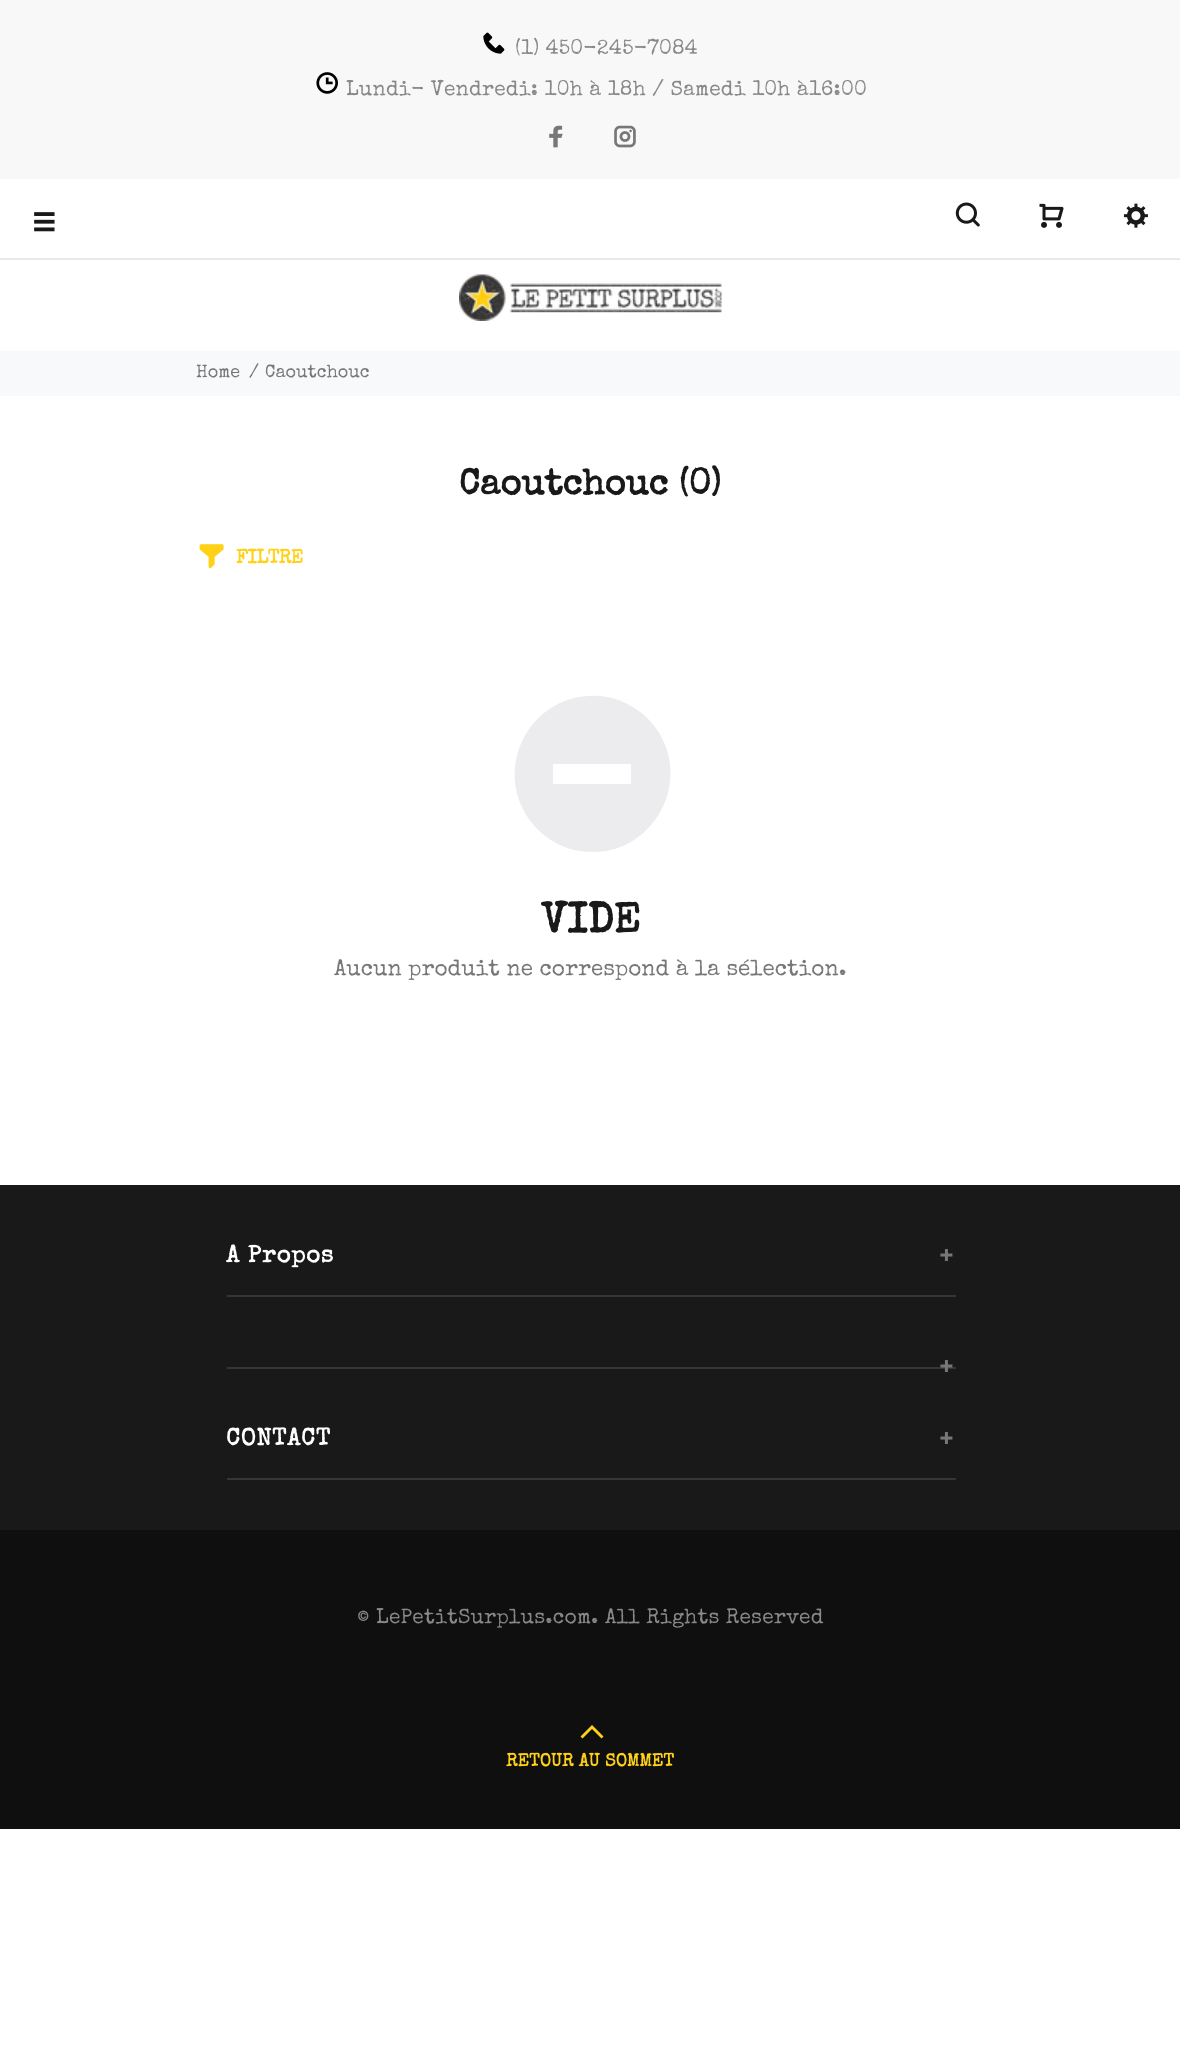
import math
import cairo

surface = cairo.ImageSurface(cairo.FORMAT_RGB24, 1180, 2071)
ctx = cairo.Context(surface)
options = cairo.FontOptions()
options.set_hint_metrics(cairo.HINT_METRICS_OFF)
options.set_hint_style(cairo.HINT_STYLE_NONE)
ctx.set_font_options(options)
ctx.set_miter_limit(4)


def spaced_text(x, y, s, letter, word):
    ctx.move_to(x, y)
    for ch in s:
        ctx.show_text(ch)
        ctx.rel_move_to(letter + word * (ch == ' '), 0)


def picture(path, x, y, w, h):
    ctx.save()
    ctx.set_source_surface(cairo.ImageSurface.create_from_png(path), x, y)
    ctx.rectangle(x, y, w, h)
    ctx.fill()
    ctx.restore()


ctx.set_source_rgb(1, 1, 1)
ctx.paint()
ctx.set_source_rgb(0.969, 0.969, 0.969)
ctx.rectangle(0, 0, 1180, 179)
ctx.fill()
picture("img1.png", 483, 32, 22, 22)
ctx.select_font_face("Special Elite")
ctx.set_font_size(21)
ctx.set_source_rgb(0.533, 0.533, 0.533)
spaced_text(515, 54, "(1) 450-245-7084", 0.2, 0)
picture("img2.png", 316, 72, 22, 22)
spaced_text(346, 95, "Lundi- Vendredi: 10h à 18h / Samedi 10h à16:00", 0.2, 0)
picture("img3.png", 549, 125, 14, 23)
picture("img4.png", 614, 125, 22, 23)
picture("img5.png", 34, 212, 21, 20)
picture("img6.png", 955, 202, 25, 25)
picture("img7.png", 1039, 203, 25, 25)
picture("img8.png", 1123, 203, 25, 25)
ctx.set_source_rgb(0.914, 0.906, 0.906)
ctx.rectangle(0, 258, 1180, 2)
ctx.fill()
picture("img9.png", 459, 274, 263, 47)
ctx.set_source_rgb(0.969, 0.973, 0.98)
ctx.rectangle(0, 351, 1180, 45)
ctx.fill()
ctx.set_font_size(18)
ctx.set_source_rgb(0.467, 0.467, 0.467)
ctx.move_to(196, 377)
ctx.show_text("Home")
ctx.move_to(249, 377)
ctx.show_text("/")
ctx.move_to(265, 377)
ctx.show_text("Caoutchouc")
ctx.select_font_face("Special Elite", cairo.FONT_SLANT_NORMAL, cairo.FONT_WEIGHT_BOLD)
ctx.set_font_size(36)
ctx.set_source_rgb(0.098, 0.098, 0.098)
ctx.move_to(459, 494)
ctx.show_text("Caoutchouc (0)")
picture("img10.png", 199, 544, 25, 25)
ctx.set_font_size(19.5)
ctx.set_source_rgb(1, 0.82, 0.09)
spaced_text(236, 563, "FILTRE", -0.5, 0)
ctx.set_source_rgb(0.922, 0.925, 0.933)
ctx.new_path()
ctx.move_to(623, 702)
ctx.curve_to(672, 723, 686, 784, 651, 825)
ctx.curve_to(640, 838, 624, 848, 606, 851)
ctx.curve_to(591, 853, 576, 852, 562, 846)
ctx.curve_to(546, 839, 533, 827, 525, 813)
ctx.curve_to(496, 763, 531, 699, 588, 696)
ctx.curve_to(600, 695, 612, 697, 623, 702)
ctx.close_path()
ctx.move_to(631, 764)
ctx.line_to(553, 764)
ctx.line_to(553, 784)
ctx.line_to(631, 784)
ctx.close_path()
ctx.fill()
ctx.set_font_size(42)
ctx.set_source_rgb(0.098, 0.098, 0.098)
ctx.move_to(541, 932)
ctx.show_text("VIDE")
ctx.select_font_face("Special Elite")
ctx.set_font_size(22.5)
ctx.set_source_rgb(0.467, 0.467, 0.467)
ctx.move_to(334, 975)
ctx.show_text("Aucun produit ne correspond à la sélection.")
ctx.set_source_rgb(0.098, 0.098, 0.098)
ctx.rectangle(0, 1185, 1180, 345)
ctx.fill()
ctx.set_source_rgb(0.212, 0.212, 0.212)
ctx.rectangle(227, 1295, 729, 2)
ctx.fill()
ctx.select_font_face("Special Elite", cairo.FONT_SLANT_NORMAL, cairo.FONT_WEIGHT_BOLD)
ctx.set_font_size(24)
ctx.set_source_rgb(1, 1, 1)
spaced_text(226, 1262, "A Propos", 0.75, 0)
picture("img11.png", 940, 1249, 13, 12)
ctx.set_source_rgb(0.212, 0.212, 0.212)
ctx.rectangle(227, 1367, 729, 2)
ctx.fill()
picture("img12.png", 940, 1360, 13, 12)
ctx.rectangle(227, 1478, 729, 2)
ctx.fill()
ctx.set_source_rgb(1, 1, 1)
spaced_text(226, 1445, "CONTACT", 0.75, 0)
picture("img11.png", 940, 1432, 13, 12)
ctx.set_source_rgb(0.059, 0.059, 0.059)
ctx.rectangle(0, 1530, 1180, 299)
ctx.fill()
ctx.select_font_face("Special Elite")
ctx.set_font_size(21)
ctx.set_source_rgb(0.533, 0.533, 0.533)
spaced_text(357, 1623, "© LePetitSurplus.com. All Rights Reserved", 0.2, 0)
ctx.set_source_rgb(1, 0.82, 0.09)
ctx.new_path()
ctx.move_to(601.5, 1738.5)
ctx.line_to(592, 1729)
ctx.line_to(582.5, 1738.5)
ctx.line_to(580.5, 1736.5)
ctx.line_to(592, 1725)
ctx.line_to(603.5, 1736.5)
ctx.close_path()
ctx.fill()
ctx.select_font_face("Special Elite", cairo.FONT_SLANT_NORMAL, cairo.FONT_WEIGHT_BOLD)
ctx.set_font_size(18)
ctx.move_to(506, 1766)
ctx.show_text("RETOUR AU SOMMET")
surface.write_to_png("page.png")
